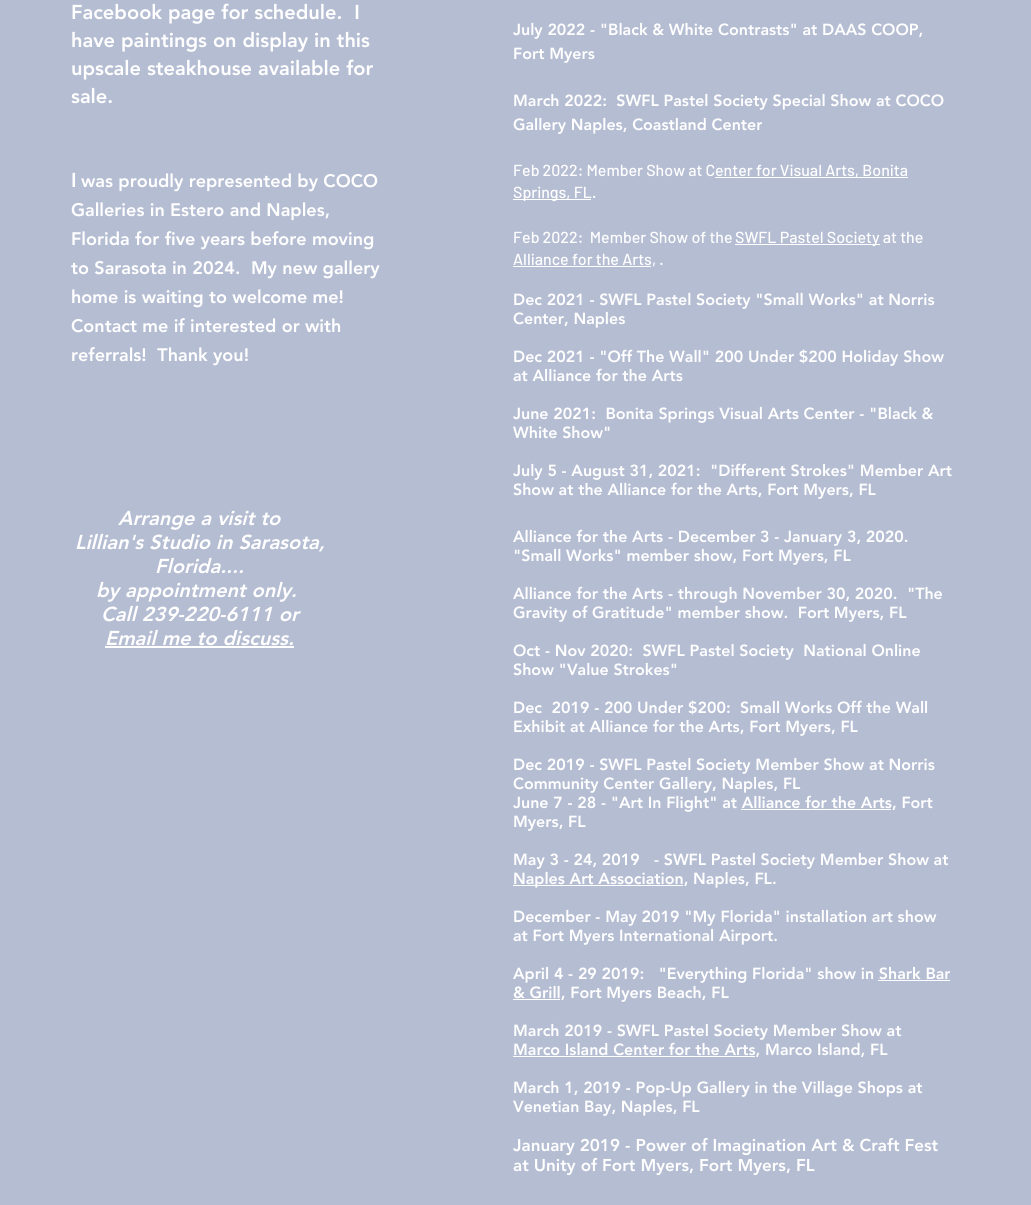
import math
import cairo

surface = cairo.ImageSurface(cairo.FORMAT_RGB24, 1031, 1205)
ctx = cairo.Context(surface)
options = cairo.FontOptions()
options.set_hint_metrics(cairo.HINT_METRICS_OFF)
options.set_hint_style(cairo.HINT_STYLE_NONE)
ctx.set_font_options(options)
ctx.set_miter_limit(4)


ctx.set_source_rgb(0.71, 0.741, 0.827)
ctx.paint()
ctx.select_font_face("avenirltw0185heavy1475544 Black")
ctx.set_font_size(20)
ctx.set_source_rgb(1, 1, 1)
ctx.move_to(71, 19)
ctx.show_text("Facebook page for schedule.  I")
ctx.move_to(71, 47)
ctx.show_text("have paintings on display in this")
ctx.move_to(71, 75)
ctx.show_text("upscale steakhouse available for")
ctx.move_to(71, 103)
ctx.show_text("sale.")
ctx.move_to(71, 187)
ctx.show_text("I")
ctx.set_font_size(18)
ctx.move_to(81, 187)
ctx.show_text("was proudly represented by COCO")
ctx.move_to(71, 216)
ctx.show_text("Galleries in Estero and Naples,")
ctx.move_to(71, 245)
ctx.show_text("Florida for five years before moving")
ctx.move_to(71, 274)
ctx.show_text("to Sarasota in 2024.  My new gallery")
ctx.move_to(71, 303)
ctx.show_text("home is waiting to welcome me!")
ctx.move_to(71, 332)
ctx.show_text("Contact me if interested or with")
ctx.move_to(71, 361)
ctx.show_text("referrals!  Thank you!")
ctx.set_font_size(16)
ctx.move_to(513, 35)
ctx.show_text("July 2022 - \"Black & White Contrasts\" at DAAS COOP,")
ctx.move_to(513, 59)
ctx.show_text("Fort Myers")
ctx.move_to(513, 106)
ctx.show_text("March 2022:  SWFL Pastel Society Special Show at COCO")
ctx.move_to(513, 130)
ctx.show_text("Gallery Naples, Coastland Center")
ctx.select_font_face("Barlow Medium")
ctx.move_to(513, 176)
ctx.show_text("Feb 2022: Member Show at C")
ctx.rectangle(715, 177, 193, 1)
ctx.fill()
ctx.move_to(715, 176)
ctx.show_text("enter for Visual Arts, Bonita")
ctx.rectangle(513, 199, 78, 1)
ctx.fill()
ctx.move_to(513, 198)
ctx.show_text("Springs, FL.")
ctx.move_to(513, 243)
ctx.show_text("Feb 2022:  Member Show of the")
ctx.rectangle(735, 244, 145, 1)
ctx.fill()
ctx.move_to(735, 243)
ctx.show_text("SWFL Pastel Society at the")
ctx.rectangle(513, 266, 138, 1)
ctx.fill()
ctx.move_to(513, 265)
ctx.show_text("Alliance for the Arts, .")
ctx.select_font_face("avenirltw0185heavy1475544 Black")
ctx.move_to(513, 305)
ctx.show_text("Dec 2021 - SWFL Pastel Society \"Small Works\" at Norris")
ctx.move_to(513, 324)
ctx.show_text("Center, Naples")
ctx.move_to(513, 362)
ctx.show_text("Dec 2021 - \"Off The Wall\" 200 Under $200 Holiday Show")
ctx.move_to(513, 381)
ctx.show_text("at Alliance for the Arts")
ctx.move_to(513, 419)
ctx.show_text("June 2021:  Bonita Springs Visual Arts Center - \"Black &")
ctx.move_to(513, 438)
ctx.show_text("White Show\"")
ctx.move_to(513, 476)
ctx.show_text("July 5 - August 31, 2021:  \"Different Strokes\" Member Art")
ctx.move_to(513, 495)
ctx.show_text("Show at the Alliance for the Arts, Fort Myers, FL")
ctx.move_to(513, 542)
ctx.show_text("Alliance for the Arts - December 3 - January 3, 2020.")
ctx.move_to(513, 561)
ctx.show_text("\"Small Works\" member show, Fort Myers, FL")
ctx.move_to(513, 599)
ctx.show_text("Alliance for the Arts - through November 30, 2020.  \"The")
ctx.move_to(513, 618)
ctx.show_text("Gravity of Gratitude\" member show.  Fort Myers, FL")
ctx.move_to(513, 656)
ctx.show_text("Oct - Nov 2020:  SWFL Pastel Society  National Online")
ctx.move_to(513, 675)
ctx.show_text("Show \"Value Strokes\"")
ctx.move_to(513, 713)
ctx.show_text("Dec  2019 - 200 Under $200:  Small Works Off the Wall")
ctx.move_to(513, 732)
ctx.show_text("Exhibit at Alliance for the Arts, Fort Myers, FL")
ctx.move_to(513, 770)
ctx.show_text("Dec 2019 - SWFL Pastel Society Member Show at Norris")
ctx.move_to(513, 789)
ctx.show_text("Community Center Gallery, Naples, FL")
ctx.move_to(513, 808)
ctx.show_text("June 7 - 28 - \"Art In Flight\" at Alliance for the Arts, Fort")
ctx.rectangle(741, 809, 150, 1)
ctx.fill()
ctx.move_to(513, 827)
ctx.show_text("Myers, FL")
ctx.move_to(513, 865)
ctx.show_text("May 3 - 24, 2019   - SWFL Pastel Society Member Show at")
ctx.rectangle(513, 885, 170, 1)
ctx.fill()
ctx.move_to(513, 884)
ctx.show_text("Naples Art Association, Naples, FL.")
ctx.move_to(513, 922)
ctx.show_text("December - May 2019 \"My Florida\" installation art show")
ctx.move_to(513, 941)
ctx.show_text("at Fort Myers International Airport.")
ctx.move_to(513, 979)
ctx.show_text("April 4 - 29 2019:   \"Everything Florida\" show in Shark Bar")
ctx.rectangle(878, 980, 72, 1)
ctx.fill()
ctx.rectangle(513, 999, 47, 1)
ctx.fill()
ctx.move_to(513, 998)
ctx.show_text("& Grill, Fort Myers Beach, FL")
ctx.move_to(513, 1036)
ctx.show_text("March 2019 - SWFL Pastel Society Member Show at")
ctx.rectangle(513, 1056, 242, 1)
ctx.fill()
ctx.move_to(513, 1055)
ctx.show_text("Marco Island Center for the Arts, Marco Island, FL")
ctx.move_to(513, 1093)
ctx.show_text("March 1, 2019 - Pop-Up Gallery in the Village Shops at")
ctx.move_to(513, 1112)
ctx.show_text("Venetian Bay, Naples, FL")
ctx.set_font_size(17)
ctx.move_to(513, 1151)
ctx.show_text("January 2019 - Power of Imagination Art & Craft Fest")
ctx.move_to(513, 1171)
ctx.show_text("at Unity of Fort Myers, Fort Myers, FL")
ctx.select_font_face("avenirltw0185heavy1475544 Black", cairo.FONT_SLANT_ITALIC)
ctx.set_font_size(20)
ctx.move_to(118, 525)
ctx.show_text("Arrange a visit to")
ctx.move_to(75, 549)
ctx.show_text("Lillian's Studio in Sarasota,")
ctx.move_to(155, 573)
ctx.show_text("Florida....")
ctx.move_to(96, 597)
ctx.show_text("by appointment only.")
ctx.move_to(101, 621)
ctx.show_text("Call 239-220-6111 or")
ctx.move_to(105, 645)
ctx.show_text("Email me to discuss.")
ctx.rectangle(105, 646, 189, 2)
ctx.fill()
surface.write_to_png("page.png")
